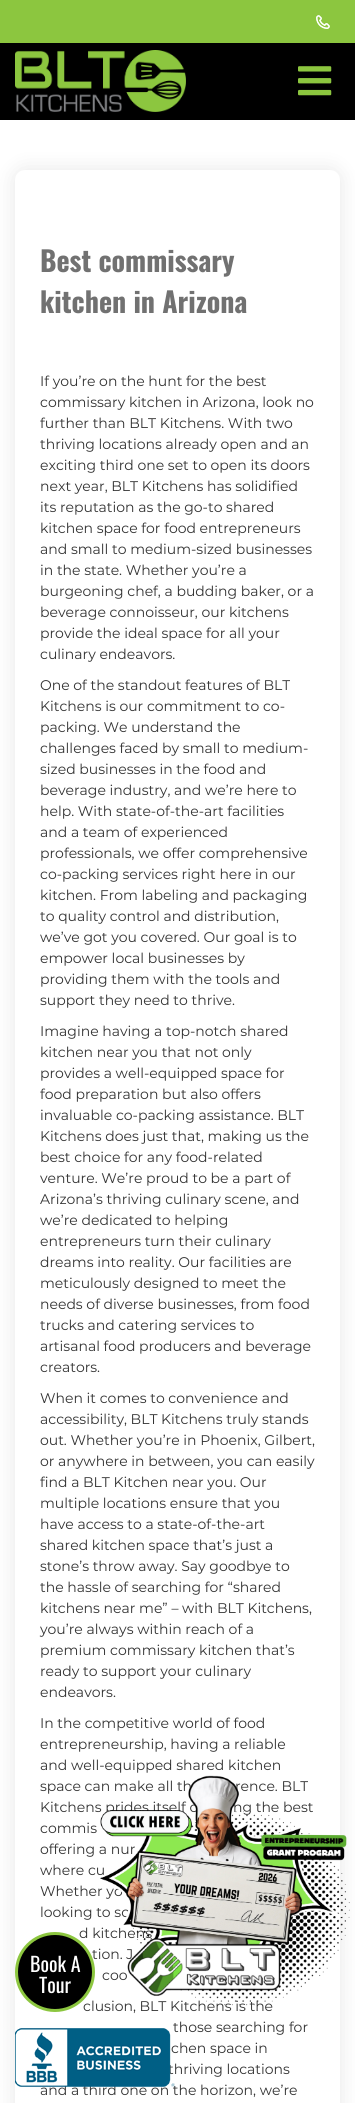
import math
import cairo

surface = cairo.ImageSurface(cairo.FORMAT_RGB24, 355, 2103)
ctx = cairo.Context(surface)
options = cairo.FontOptions()
options.set_hint_metrics(cairo.HINT_METRICS_OFF)
options.set_hint_style(cairo.HINT_STYLE_NONE)
ctx.set_font_options(options)
ctx.set_miter_limit(4)


def round_rect(x, y, w, h, r):
    ctx.new_sub_path()
    for i, (u, v) in enumerate([(x + w - r, y + h - r), (x + r, y + h - r), (x + r, y + r), (x + w - r, y + r)]):
        ctx.arc(u, v, r, i * math.pi / 2, (i + 1) * math.pi / 2)
    ctx.close_path()


def shadow(x, y, w, h, r, blur, alpha):
    ctx.push_group_with_content(cairo.CONTENT_ALPHA)
    ctx.set_operator(cairo.OPERATOR_SOURCE)
    for i in range(15, -16, -2):
        e = blur * i / 6
        if min(w, h) + 2 * e > 0:
            ctx.set_source_rgba(0, 0, 0, alpha * math.erfc((i - 1) / 8.5) / 2)
            round_rect(x - e, y - e, w + 2 * e, h + 2 * e, max(0, min(r + e + blur * .6, min(w, h) / 2 + e)))
            ctx.fill()
    ctx.mask(ctx.pop_group())


def picture(path, x, y, w, h):
    ctx.save()
    ctx.set_source_surface(cairo.ImageSurface.create_from_png(path), x, y)
    ctx.rectangle(x, y, w, h)
    ctx.fill()
    ctx.restore()


ctx.set_source_rgb(1, 1, 1)
ctx.paint()
ctx.set_source_rgb(0.549, 0.776, 0.247)
ctx.rectangle(0, 0, 355, 43)
ctx.fill()
picture("img1.png", 316, 15, 14, 14)
ctx.set_source_rgb(0, 0, 0)
ctx.rectangle(0, 43, 355, 77)
ctx.fill()
picture("img2.png", 15, 50, 171, 62)
picture("img3.png", 298, 66, 34, 30)
ctx.set_source_rgb(0, 0, 0)
shadow(15, 170, 325, 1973, 10, 10, 0.1)
ctx.set_source_rgb(1, 1, 1)
round_rect(15, 170, 325, 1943, 10)
ctx.fill()
ctx.select_font_face("Oswald", cairo.FONT_SLANT_NORMAL, cairo.FONT_WEIGHT_BOLD)
ctx.set_font_size(28)
ctx.set_source_rgb(0.443, 0.443, 0.443)
ctx.move_to(40, 272)
ctx.show_text("Best commissary")
ctx.move_to(40, 313)
ctx.show_text("kitchen in Arizona")
ctx.select_font_face("Montserrat")
ctx.set_font_size(14)
ctx.set_source_rgb(0.2, 0.2, 0.2)
ctx.move_to(40, 386)
ctx.show_text("If you’re on the hunt for the best")
ctx.move_to(40, 407)
ctx.show_text("commissary kitchen in Arizona, look no")
ctx.move_to(40, 428)
ctx.show_text("further than BLT Kitchens. With two")
ctx.move_to(40, 449)
ctx.show_text("thriving locations already open and an")
ctx.move_to(40, 470)
ctx.show_text("exciting third one set to open its doors")
ctx.move_to(40, 491)
ctx.show_text("next year, BLT Kitchens has solidified")
ctx.move_to(40, 512)
ctx.show_text("its reputation as the go-to shared")
ctx.move_to(40, 533)
ctx.show_text("kitchen space for food entrepreneurs")
ctx.move_to(40, 554)
ctx.show_text("and small to medium-sized businesses")
ctx.move_to(40, 575)
ctx.show_text("in the state. Whether you’re a")
ctx.move_to(40, 596)
ctx.show_text("burgeoning chef, a budding baker, or a")
ctx.move_to(40, 617)
ctx.show_text("beverage connoisseur, our kitchens")
ctx.move_to(40, 638)
ctx.show_text("provide the ideal space for all your")
ctx.move_to(40, 659)
ctx.show_text("culinary endeavors.")
ctx.move_to(40, 690)
ctx.show_text("One of the standout features of BLT")
ctx.move_to(40, 711)
ctx.show_text("Kitchens is our commitment to co-")
ctx.move_to(40, 732)
ctx.show_text("packing. We understand the")
ctx.move_to(40, 753)
ctx.show_text("challenges faced by small to medium-")
ctx.move_to(40, 774)
ctx.show_text("sized businesses in the food and")
ctx.move_to(40, 795)
ctx.show_text("beverage industry, and we’re here to")
ctx.move_to(40, 816)
ctx.show_text("help. With state-of-the-art facilities")
ctx.move_to(40, 837)
ctx.show_text("and a team of experienced")
ctx.move_to(40, 858)
ctx.show_text("professionals, we offer comprehensive")
ctx.move_to(40, 879)
ctx.show_text("co-packing services right here in our")
ctx.move_to(40, 900)
ctx.show_text("kitchen. From labeling and packaging")
ctx.move_to(40, 921)
ctx.show_text("to quality control and distribution,")
ctx.move_to(40, 942)
ctx.show_text("we’ve got you covered. Our goal is to")
ctx.move_to(40, 963)
ctx.show_text("empower local businesses by")
ctx.move_to(40, 984)
ctx.show_text("providing them with the tools and")
ctx.move_to(40, 1005)
ctx.show_text("support they need to thrive.")
ctx.move_to(40, 1036)
ctx.show_text("Imagine having a top-notch shared")
ctx.move_to(40, 1057)
ctx.show_text("kitchen near you that not only")
ctx.move_to(40, 1078)
ctx.show_text("provides a well-equipped space for")
ctx.move_to(40, 1099)
ctx.show_text("food preparation but also offers")
ctx.move_to(40, 1120)
ctx.show_text("invaluable co-packing assistance. BLT")
ctx.move_to(40, 1141)
ctx.show_text("Kitchens does just that, making us the")
ctx.move_to(40, 1162)
ctx.show_text("best choice for any food-related")
ctx.move_to(40, 1183)
ctx.show_text("venture. We’re proud to be a part of")
ctx.move_to(40, 1204)
ctx.show_text("Arizona’s thriving culinary scene, and")
ctx.move_to(40, 1225)
ctx.show_text("we’re dedicated to helping")
ctx.move_to(40, 1246)
ctx.show_text("entrepreneurs turn their culinary")
ctx.move_to(40, 1267)
ctx.show_text("dreams into reality. Our facilities are")
ctx.move_to(40, 1288)
ctx.show_text("meticulously designed to meet the")
ctx.move_to(40, 1309)
ctx.show_text("needs of diverse businesses, from food")
ctx.move_to(40, 1330)
ctx.show_text("trucks and catering services to")
ctx.move_to(40, 1351)
ctx.show_text("artisanal food producers and beverage")
ctx.move_to(40, 1372)
ctx.show_text("creators.")
ctx.move_to(40, 1403)
ctx.show_text("When it comes to convenience and")
ctx.move_to(40, 1424)
ctx.show_text("accessibility, BLT Kitchens truly stands")
ctx.move_to(40, 1445)
ctx.show_text("out. Whether you’re in Phoenix, Gilbert,")
ctx.move_to(40, 1466)
ctx.show_text("or anywhere in between, you can easily")
ctx.move_to(40, 1487)
ctx.show_text("find a BLT Kitchen near you. Our")
ctx.move_to(40, 1508)
ctx.show_text("multiple locations ensure that you")
ctx.move_to(40, 1529)
ctx.show_text("have access to a state-of-the-art")
ctx.move_to(40, 1550)
ctx.show_text("shared kitchen space that’s just a")
ctx.move_to(40, 1571)
ctx.show_text("stone’s throw away. Say goodbye to")
ctx.move_to(40, 1592)
ctx.show_text("the hassle of searching for “shared")
ctx.move_to(40, 1613)
ctx.show_text("kitchens near me” – with BLT Kitchens,")
ctx.move_to(40, 1634)
ctx.show_text("you’re always within reach of a")
ctx.move_to(40, 1655)
ctx.show_text("premium commissary kitchen that’s")
ctx.move_to(40, 1676)
ctx.show_text("ready to support your culinary")
ctx.move_to(40, 1697)
ctx.show_text("endeavors.")
ctx.move_to(40, 1728)
ctx.show_text("In the competitive world of food")
ctx.move_to(40, 1749)
ctx.show_text("entrepreneurship, having a reliable")
ctx.move_to(40, 1770)
ctx.show_text("and well-equipped shared kitchen")
ctx.move_to(40, 1791)
ctx.show_text("space can make all th")
ctx.move_to(235, 1791)
ctx.show_text("rence. BLT")
ctx.move_to(40, 1812)
ctx.show_text("Kitchens prides itself o")
ctx.move_to(233, 1812)
ctx.show_text("ng the best")
ctx.move_to(40, 1833)
ctx.show_text("commis")
ctx.move_to(40, 1854)
ctx.show_text("offering a nur")
ctx.move_to(40, 1875)
ctx.show_text("where cu")
ctx.move_to(40, 1896)
ctx.show_text("Whether yo")
ctx.move_to(40, 1917)
ctx.show_text("looking to sc")
ctx.move_to(79, 1938)
ctx.show_text("d kitchens")
ctx.move_to(92, 1959)
ctx.show_text("tion. J")
ctx.move_to(102, 1980)
ctx.show_text("coo")
ctx.move_to(83, 2011)
ctx.show_text("clusion, BLT Kitchens is the")
ctx.move_to(173, 2032)
ctx.show_text("those searching for")
ctx.move_to(171, 2053)
ctx.show_text("chen space in")
ctx.move_to(168, 2074)
ctx.show_text("thriving locations")
ctx.move_to(40, 2095)
ctx.show_text("and a third one on the horizon, we’re")
ctx.set_source_rgb(0, 0, 0)
ctx.new_path()
ctx.arc(55, 1972, 38.5, 0, 2 * math.pi)
ctx.fill_preserve()
ctx.set_source_rgb(0.549, 0.776, 0.247)
ctx.set_line_width(3)
ctx.stroke()
ctx.select_font_face("Oswald")
ctx.set_font_size(20)
ctx.set_source_rgb(1, 1, 1)
ctx.move_to(30, 1972)
ctx.show_text("Book A")
ctx.move_to(39, 1993)
ctx.show_text("Tour")
picture("img4.png", 100, 1775, 250, 231)
picture("img5.png", 15, 2028, 160, 59)
surface.write_to_png("page.png")
